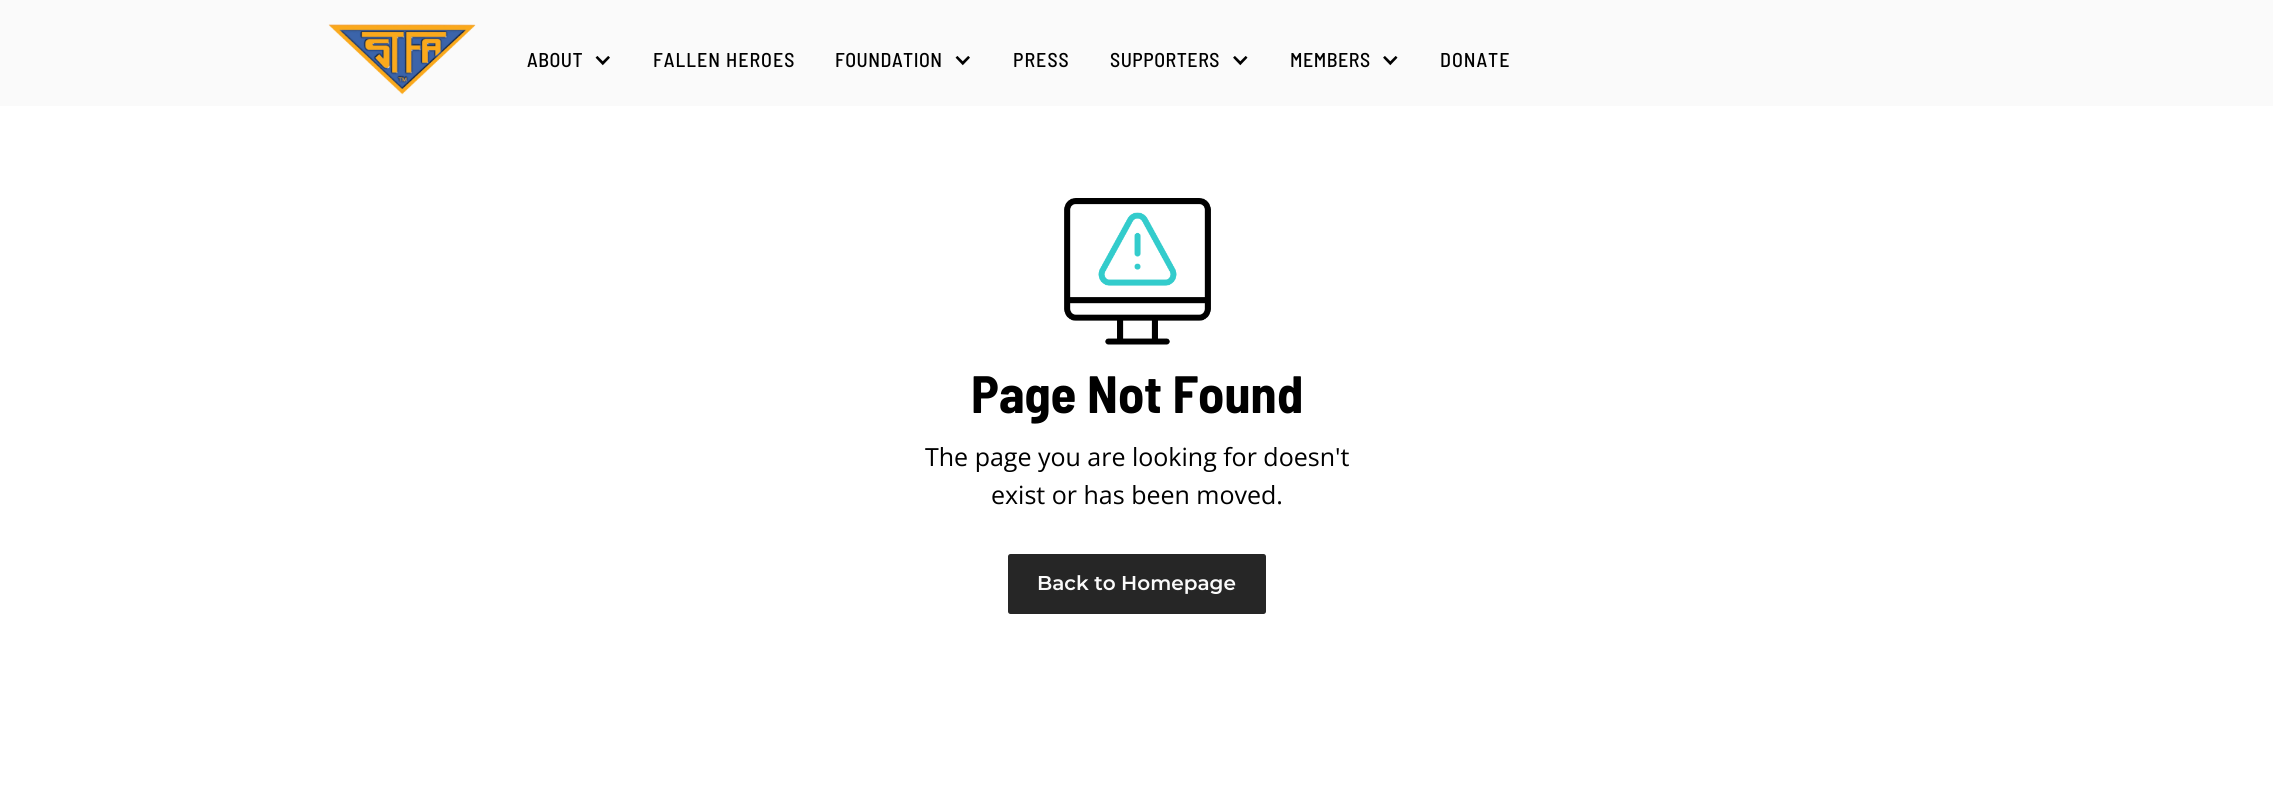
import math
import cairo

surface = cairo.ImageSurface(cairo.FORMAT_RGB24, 2273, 791)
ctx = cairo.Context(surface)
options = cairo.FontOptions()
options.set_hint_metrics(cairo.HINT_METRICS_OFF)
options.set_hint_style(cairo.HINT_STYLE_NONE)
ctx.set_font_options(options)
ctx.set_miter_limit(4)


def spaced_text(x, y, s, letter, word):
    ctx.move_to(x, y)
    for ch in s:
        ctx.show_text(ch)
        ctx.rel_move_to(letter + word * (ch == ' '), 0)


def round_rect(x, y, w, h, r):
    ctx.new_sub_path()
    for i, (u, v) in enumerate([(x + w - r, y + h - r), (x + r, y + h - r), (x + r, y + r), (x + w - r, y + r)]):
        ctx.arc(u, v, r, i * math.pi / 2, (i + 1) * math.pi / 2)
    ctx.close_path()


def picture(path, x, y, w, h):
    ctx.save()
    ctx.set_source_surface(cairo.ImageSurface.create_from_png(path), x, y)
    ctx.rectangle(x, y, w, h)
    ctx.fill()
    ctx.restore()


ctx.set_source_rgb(1, 1, 1)
ctx.paint()
ctx.set_source_rgb(0.98, 0.98, 0.98)
ctx.rectangle(0, 0, 2273, 106)
ctx.fill()
picture("img1.png", 328, 24, 148, 71)
ctx.select_font_face("Barlow Semi Condensed Medium")
ctx.set_font_size(20)
ctx.set_source_rgb(0, 0, 0)
spaced_text(527, 67, "ABOUT", 0.5, 0)
picture("img2.png", 595, 56, 15, 10)
spaced_text(653, 67, "FALLEN HEROES", 1, 0)
spaced_text(835, 67, "FOUNDATION", 0.5, 0)
picture("img2.png", 955, 56, 15, 10)
spaced_text(1013, 67, "PRESS", 1, 0)
spaced_text(1110, 67, "SUPPORTERS", 0.5, 0)
picture("img3.png", 1233, 56, 15, 10)
spaced_text(1290, 67, "MEMBERS", 0.5, 0)
picture("img3.png", 1383, 56, 15, 10)
spaced_text(1440, 67, "DONATE", 1, 0)
picture("img4.png", 1064, 198, 147, 147)
ctx.select_font_face("Barlow Semi Condensed", cairo.FONT_SLANT_NORMAL, cairo.FONT_WEIGHT_BOLD)
ctx.set_font_size(52.5)
ctx.move_to(971, 413)
ctx.show_text("Page Not Found")
ctx.select_font_face("Open Sans")
ctx.set_font_size(25)
ctx.move_to(925, 466)
ctx.show_text("The page you are looking for doesn't")
ctx.move_to(991, 504)
ctx.show_text("exist or has been moved.")
ctx.set_source_rgb(0.149, 0.149, 0.149)
round_rect(1008, 554, 258, 60, 2.5)
ctx.fill()
ctx.select_font_face("Montserrat SemiBold")
ctx.set_font_size(20)
ctx.set_source_rgb(0.98, 0.98, 0.98)
ctx.move_to(1037, 590)
ctx.show_text("Back to Homepage")
surface.write_to_png("page.png")
